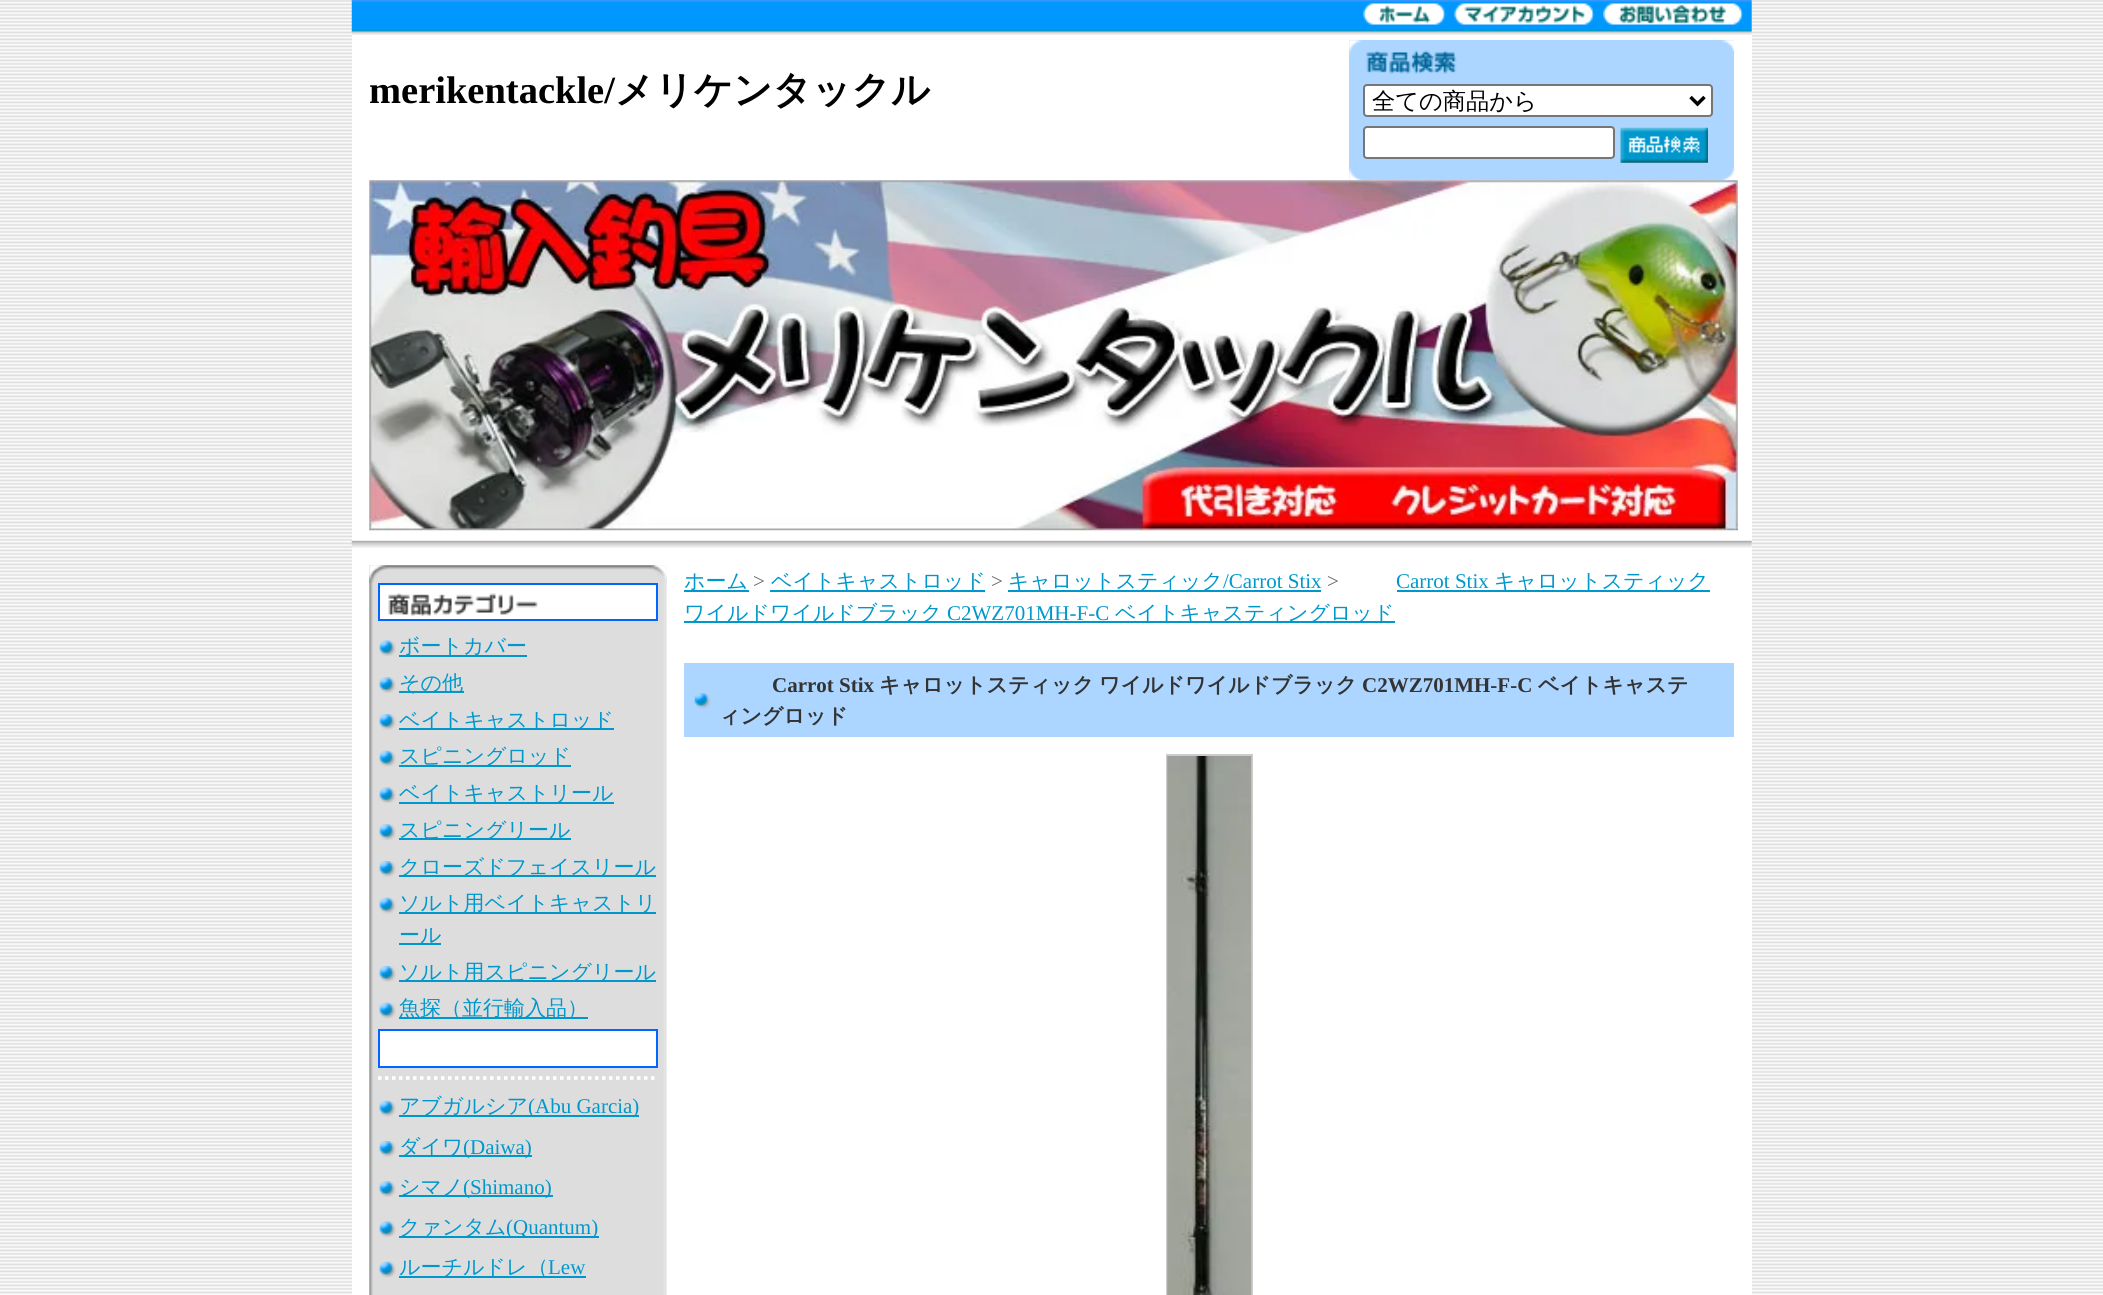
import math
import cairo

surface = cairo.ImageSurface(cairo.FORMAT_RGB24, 2103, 1295)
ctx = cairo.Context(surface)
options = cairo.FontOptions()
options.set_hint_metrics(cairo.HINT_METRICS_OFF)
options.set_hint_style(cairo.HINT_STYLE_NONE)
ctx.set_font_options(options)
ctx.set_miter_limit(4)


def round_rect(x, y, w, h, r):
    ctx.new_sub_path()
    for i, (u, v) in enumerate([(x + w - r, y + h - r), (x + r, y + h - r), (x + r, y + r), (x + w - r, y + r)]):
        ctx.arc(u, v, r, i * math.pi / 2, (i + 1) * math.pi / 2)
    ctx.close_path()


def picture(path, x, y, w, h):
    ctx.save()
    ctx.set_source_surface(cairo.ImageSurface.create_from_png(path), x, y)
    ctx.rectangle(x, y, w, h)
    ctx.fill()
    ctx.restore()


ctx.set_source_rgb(1, 1, 1)
ctx.paint()
picture("img1.png", 0, 0, 2103, 1295)
ctx.set_source_rgb(1, 1, 1)
ctx.rectangle(352, 0, 1400, 1295)
ctx.fill()
picture("img2.png", 351, 0, 1401, 35)
picture("img3.png", 1363, 3, 83, 22)
picture("img4.png", 1454, 3, 141, 22)
picture("img5.png", 1603, 3, 140, 22)
picture("img6.png", 351, 540, 1401, 8)
ctx.select_font_face("Liberation Serif", cairo.FONT_SLANT_NORMAL, cairo.FONT_WEIGHT_BOLD)
ctx.set_font_size(38.5)
ctx.set_source_rgb(0, 0, 0)
ctx.move_to(369, 103)
ctx.show_text("merikentackle/")
ctx.select_font_face("WenQuanYi Zen Hei", cairo.FONT_SLANT_NORMAL, cairo.FONT_WEIGHT_BOLD)
ctx.move_to(615, 103)
ctx.show_text("メリケンタックル")
ctx.set_source_rgb(0.675, 0.839, 1)
ctx.rectangle(1349, 40, 385, 140)
ctx.fill()
picture("img7.png", 1349, 168, 386, 13)
picture("img8.png", 1349, 40, 386, 34)
ctx.set_source_rgb(1, 1, 1)
round_rect(1364, 85, 348, 31, 3)
ctx.fill_preserve()
ctx.set_source_rgb(0.463, 0.463, 0.463)
ctx.stroke()
ctx.new_path()
ctx.move_to(1690.5, 97)
ctx.line_to(1697.5, 104)
ctx.line_to(1704.5, 97)
ctx.set_source_rgb(0, 0, 0)
ctx.set_line_width(3.5)
ctx.stroke()
ctx.select_font_face("WenQuanYi Zen Hei Medium")
ctx.set_font_size(23.25)
ctx.move_to(1372, 109)
ctx.show_text("全ての商品から")
ctx.set_source_rgb(1, 1, 1)
round_rect(1364, 127, 250, 31, 3)
ctx.fill_preserve()
ctx.set_source_rgb(0.463, 0.463, 0.463)
ctx.set_line_width(2)
ctx.stroke()
picture("img9.png", 1620, 127, 88, 36)
picture("img10.png", 369, 180, 1369, 351)
picture("img11.png", 369, 565, 298, 730)
picture("img12.png", 369, 565, 298, 18)
ctx.set_source_rgb(1, 1, 1)
ctx.rectangle(379, 584, 278, 36)
ctx.fill_preserve()
ctx.set_source_rgb(0, 0.4, 1)
ctx.stroke()
picture("img13.png", 388, 593, 150, 23)
picture("img14.png", 379, 640, 17, 16)
ctx.set_source_rgb(0, 0.596, 0.8)
ctx.rectangle(399, 655, 128, 2)
ctx.fill()
ctx.set_font_size(21)
ctx.move_to(399, 653)
ctx.show_text("ボートカバー")
picture("img15.png", 379, 677, 17, 16)
ctx.rectangle(399, 691, 65, 2)
ctx.fill()
ctx.move_to(399, 690)
ctx.show_text("その他")
picture("img16.png", 379, 714, 17, 16)
ctx.rectangle(399, 728, 215, 2)
ctx.fill()
ctx.move_to(399, 727)
ctx.show_text("ベイトキャストロッド")
picture("img17.png", 379, 750, 17, 17)
ctx.rectangle(399, 765, 172, 2)
ctx.fill()
ctx.move_to(399, 763)
ctx.show_text("スピニングロッド")
picture("img14.png", 379, 787, 17, 16)
ctx.rectangle(399, 802, 215, 2)
ctx.fill()
ctx.move_to(399, 800)
ctx.show_text("ベイトキャストリール")
picture("img15.png", 379, 824, 17, 16)
ctx.rectangle(399, 838, 172, 2)
ctx.fill()
ctx.move_to(399, 837)
ctx.show_text("スピニングリール")
picture("img16.png", 379, 861, 17, 16)
ctx.rectangle(399, 875, 257, 2)
ctx.fill()
ctx.move_to(399, 874)
ctx.show_text("クローズドフェイスリール")
picture("img17.png", 379, 897, 17, 17)
ctx.rectangle(399, 912, 257, 2)
ctx.fill()
ctx.move_to(399, 910)
ctx.show_text("ソルト用ベイトキャストリ")
ctx.rectangle(399, 943, 42, 2)
ctx.fill()
ctx.move_to(399, 942)
ctx.show_text("ール")
picture("img16.png", 379, 966, 17, 16)
ctx.rectangle(399, 980, 257, 2)
ctx.fill()
ctx.move_to(399, 979)
ctx.show_text("ソルト用スピニングリール")
picture("img17.png", 379, 1002, 17, 17)
ctx.rectangle(399, 1017, 189, 2)
ctx.fill()
ctx.move_to(399, 1015)
ctx.show_text("魚探（並行輸入品）")
ctx.set_source_rgb(1, 1, 1)
ctx.rectangle(379, 1030, 278, 37)
ctx.fill_preserve()
ctx.set_source_rgb(0, 0.4, 1)
ctx.stroke()
ctx.new_path()
ctx.move_to(378, 1078)
ctx.line_to(658, 1078)
ctx.set_source_rgb(1, 1, 1)
ctx.set_line_width(3.5)
ctx.set_dash([3.5, 3.5])
ctx.stroke()
picture("img17.png", 379, 1100, 17, 17)
ctx.set_source_rgb(0, 0.596, 0.8)
ctx.rectangle(399, 1115, 240, 2)
ctx.fill()
ctx.move_to(399, 1113)
ctx.show_text("アブガルシア")
ctx.select_font_face("Liberation Serif")
ctx.move_to(528, 1113)
ctx.show_text("(Abu Garcia)")
picture("img16.png", 379, 1141, 17, 16)
ctx.rectangle(399, 1155, 133, 2)
ctx.fill()
ctx.select_font_face("WenQuanYi Zen Hei Medium")
ctx.move_to(399, 1154)
ctx.show_text("ダイワ")
ctx.select_font_face("Liberation Serif")
ctx.move_to(463, 1154)
ctx.show_text("(Daiwa)")
picture("img15.png", 379, 1181, 17, 16)
ctx.rectangle(399, 1195, 154, 2)
ctx.fill()
ctx.select_font_face("WenQuanYi Zen Hei Medium")
ctx.move_to(399, 1194)
ctx.show_text("シマノ")
ctx.select_font_face("Liberation Serif")
ctx.move_to(463, 1194)
ctx.show_text("(Shimano)")
picture("img14.png", 379, 1221, 17, 16)
ctx.rectangle(399, 1236, 200, 2)
ctx.fill()
ctx.select_font_face("WenQuanYi Zen Hei Medium")
ctx.move_to(399, 1234)
ctx.show_text("クァンタム")
ctx.select_font_face("Liberation Serif")
ctx.move_to(506, 1234)
ctx.show_text("(Quantum)")
picture("img17.png", 379, 1261, 17, 17)
ctx.rectangle(399, 1276, 187, 2)
ctx.fill()
ctx.select_font_face("WenQuanYi Zen Hei Medium")
ctx.move_to(399, 1274)
ctx.show_text("ルーチルドレ（")
ctx.select_font_face("Liberation Serif")
ctx.move_to(548, 1274)
ctx.show_text("Lew")
ctx.rectangle(684, 590, 65, 2)
ctx.fill()
ctx.select_font_face("WenQuanYi Zen Hei Medium")
ctx.move_to(684, 588)
ctx.show_text("ホーム")
ctx.select_font_face("Liberation Serif")
ctx.set_source_rgb(0.4, 0.4, 0.4)
ctx.move_to(753, 588)
ctx.show_text(">")
ctx.set_source_rgb(0, 0.596, 0.8)
ctx.rectangle(770, 590, 215, 2)
ctx.fill()
ctx.select_font_face("WenQuanYi Zen Hei Medium")
ctx.move_to(771, 588)
ctx.show_text("ベイトキャストロッド")
ctx.select_font_face("Liberation Serif")
ctx.set_source_rgb(0.4, 0.4, 0.4)
ctx.move_to(991, 588)
ctx.show_text(">")
ctx.set_source_rgb(0, 0.596, 0.8)
ctx.rectangle(1008, 590, 313, 2)
ctx.fill()
ctx.select_font_face("WenQuanYi Zen Hei Medium")
ctx.move_to(1008, 588)
ctx.show_text("キャロットスティック")
ctx.select_font_face("Liberation Serif")
ctx.move_to(1223, 588)
ctx.show_text("/Carrot Stix")
ctx.set_source_rgb(0.4, 0.4, 0.4)
ctx.move_to(1327, 588)
ctx.show_text(">")
ctx.set_source_rgb(0, 0.596, 0.8)
ctx.move_to(1396, 588)
ctx.show_text("Carrot Stix")
ctx.rectangle(1397, 590, 313, 2)
ctx.fill()
ctx.select_font_face("WenQuanYi Zen Hei Medium")
ctx.move_to(1494, 588)
ctx.show_text("キャロットスティック")
ctx.rectangle(684, 621, 711, 2)
ctx.fill()
ctx.move_to(684, 620)
ctx.show_text("ワイルドワイルドブラック")
ctx.select_font_face("Liberation Serif")
ctx.move_to(947, 620)
ctx.show_text("C2WZ701MH-F-C")
ctx.select_font_face("WenQuanYi Zen Hei Medium")
ctx.move_to(1115, 620)
ctx.show_text("ベイトキャスティングロッド")
ctx.set_source_rgb(0.675, 0.839, 1)
ctx.rectangle(684, 663, 1050, 74)
ctx.fill()
picture("img18.png", 694, 693, 17, 16)
ctx.select_font_face("Liberation Serif", cairo.FONT_SLANT_NORMAL, cairo.FONT_WEIGHT_BOLD)
ctx.set_source_rgb(0.2, 0.2, 0.2)
ctx.move_to(772, 692)
ctx.show_text("Carrot Stix")
ctx.select_font_face("WenQuanYi Zen Hei", cairo.FONT_SLANT_NORMAL, cairo.FONT_WEIGHT_BOLD)
ctx.move_to(879, 692)
ctx.show_text("キャロットスティック")
ctx.move_to(1099, 692)
ctx.show_text("ワイルドワイルドブラック")
ctx.select_font_face("Liberation Serif", cairo.FONT_SLANT_NORMAL, cairo.FONT_WEIGHT_BOLD)
ctx.move_to(1362, 692)
ctx.show_text("C2WZ701MH-F-C")
ctx.select_font_face("WenQuanYi Zen Hei", cairo.FONT_SLANT_NORMAL, cairo.FONT_WEIGHT_BOLD)
ctx.move_to(1538, 692)
ctx.show_text("ベイトキャステ")
ctx.move_to(719, 723)
ctx.show_text("ィングロッド")
ctx.rectangle(1167, 755, 85, 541)
ctx.set_source_rgb(0.8, 0.8, 0.8)
ctx.set_line_width(2)
ctx.set_dash([])
ctx.stroke()
picture("img19.png", 1167, 756, 85, 539)
surface.write_to_png("page.png")
